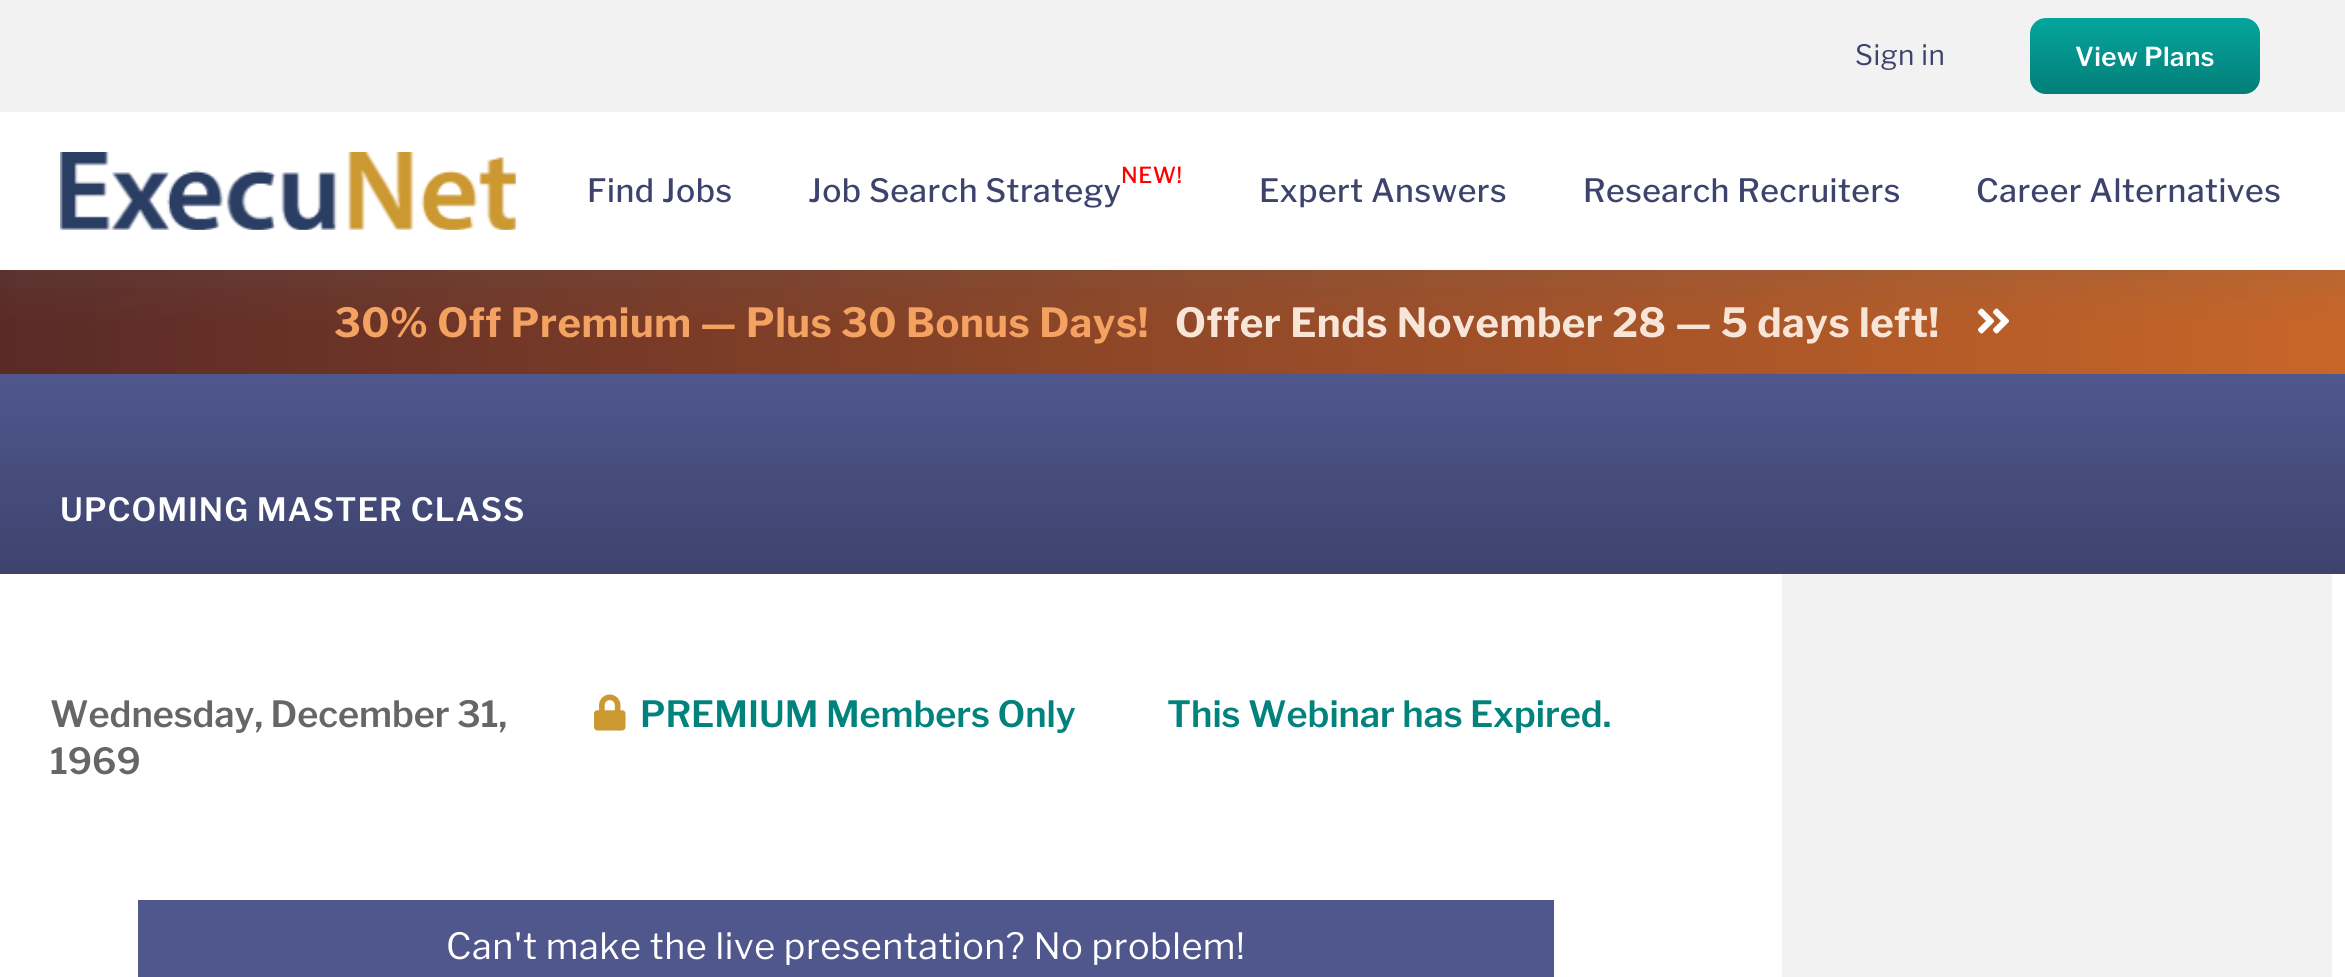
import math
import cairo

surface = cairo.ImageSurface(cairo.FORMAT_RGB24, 2345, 977)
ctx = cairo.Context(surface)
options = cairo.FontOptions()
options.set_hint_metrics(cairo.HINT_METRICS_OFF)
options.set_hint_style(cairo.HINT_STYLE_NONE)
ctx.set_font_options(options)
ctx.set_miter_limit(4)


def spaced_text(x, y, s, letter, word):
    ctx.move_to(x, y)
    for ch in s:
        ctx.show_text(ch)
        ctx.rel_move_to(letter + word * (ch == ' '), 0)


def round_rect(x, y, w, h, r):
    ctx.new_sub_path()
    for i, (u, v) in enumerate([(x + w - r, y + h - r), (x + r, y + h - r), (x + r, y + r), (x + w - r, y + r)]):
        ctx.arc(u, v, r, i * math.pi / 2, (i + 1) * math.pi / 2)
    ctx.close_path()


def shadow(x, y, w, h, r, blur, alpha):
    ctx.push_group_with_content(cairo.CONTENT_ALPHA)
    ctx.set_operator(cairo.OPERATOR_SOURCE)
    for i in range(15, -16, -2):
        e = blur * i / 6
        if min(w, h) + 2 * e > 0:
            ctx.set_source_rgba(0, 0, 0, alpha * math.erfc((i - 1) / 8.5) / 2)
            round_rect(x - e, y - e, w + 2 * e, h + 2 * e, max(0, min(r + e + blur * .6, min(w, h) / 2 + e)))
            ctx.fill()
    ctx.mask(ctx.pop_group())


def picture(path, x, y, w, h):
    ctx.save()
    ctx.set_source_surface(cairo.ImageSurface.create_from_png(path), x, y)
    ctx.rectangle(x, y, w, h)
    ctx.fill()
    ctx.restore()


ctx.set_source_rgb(1, 1, 1)
ctx.paint()
gradient = cairo.LinearGradient(0, 322, 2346, 322)
gradient.add_color_stop_rgba(0, 0.353, 0.165, 0.153, 1)
gradient.add_color_stop_rgba(1, 0.784, 0.4, 0.157, 1)
ctx.set_source(gradient)
ctx.rectangle(0, 270, 2345, 104)
ctx.fill()
picture("img2.png", 1978, 308, 31, 26)
ctx.save()
ctx.rectangle(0, 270, 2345, 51)
ctx.clip()
ctx.set_source_rgb(0.4, 0.4, 0.4)
shadow(4, 126, 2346, 158, 0, 27, 0.23)
ctx.restore()
ctx.set_source_rgb(0.949, 0.949, 0.949)
ctx.rectangle(0, 0, 2345, 112)
ctx.fill()
ctx.select_font_face("Libre Franklin")
ctx.set_font_size(28)
ctx.set_source_rgb(0.239, 0.263, 0.427)
spaced_text(1855, 65, "Sign in", 0.5, 0)
gradient = cairo.LinearGradient(2145, 18, 2145, 94)
gradient.add_color_stop_rgba(0, 0.016, 0.647, 0.616, 1)
gradient.add_color_stop_rgba(1, 0.012, 0.498, 0.475, 1)
ctx.set_source(gradient)
round_rect(2030, 18, 230, 76, 16)
ctx.fill()
ctx.select_font_face("Libre Franklin SemiBold")
ctx.set_font_size(26)
ctx.set_source_rgb(1, 1, 1)
spaced_text(2075, 66, "View Plans", 0.4, 0)
picture("img1.png", 60, 152, 456, 78)
ctx.select_font_face("Libre Franklin Medium")
ctx.set_font_size(32)
ctx.set_source_rgb(0.239, 0.263, 0.427)
spaced_text(587, 202, "Find Jobs", 0.5, 0)
ctx.set_font_size(22)
ctx.set_source_rgb(1, 0, 0)
spaced_text(1121, 183, "NEW!", 0.5, 0)
ctx.set_font_size(32)
ctx.set_source_rgb(0.239, 0.263, 0.427)
spaced_text(808, 202, "Job Search Strategy", 0.5, 0)
spaced_text(1259, 202, "Expert Answers", 0.5, 0)
spaced_text(1583, 202, "Research Recruiters", 0.5, 0)
spaced_text(1976, 202, "Career Alternatives", 0.5, 0)
ctx.select_font_face("Libre Franklin", cairo.FONT_SLANT_NORMAL, cairo.FONT_WEIGHT_BOLD)
ctx.set_font_size(40)
ctx.set_source_rgb(0.957, 0.635, 0.38)
spaced_text(334, 337, "30% Off Premium — Plus 30 Bonus Days!", 0.55, 0)
ctx.set_source_rgb(0.965, 0.898, 0.847)
spaced_text(1175, 337, "Offer Ends November 28 — 5 days left!", 0.55, 0)
gradient = cairo.LinearGradient(1173, 374, 1173, 574)
gradient.add_color_stop_rgba(0, 0.31, 0.341, 0.553, 1)
gradient.add_color_stop_rgba(1, 0.239, 0.263, 0.427, 1)
ctx.set_source(gradient)
ctx.rectangle(0, 374, 2345, 200)
ctx.fill()
ctx.select_font_face("Libre Franklin SemiBold")
ctx.set_font_size(32)
ctx.set_source_rgb(1, 1, 1)
spaced_text(60, 521, "UPCOMING MASTER CLASS", 1, 0)
ctx.set_font_size(36)
ctx.set_source_rgb(0.4, 0.4, 0.4)
ctx.move_to(50, 727)
ctx.show_text("Wednesday, December 31,")
ctx.move_to(50, 774)
ctx.show_text("1969")
picture("img3.png", 594, 694, 32, 37)
ctx.set_source_rgb(0.004, 0.51, 0.49)
ctx.move_to(640, 727)
ctx.show_text("PREMIUM Members Only")
ctx.move_to(1167, 727)
ctx.show_text("This Webinar has Expired.")
ctx.set_source_rgb(0.31, 0.341, 0.553)
ctx.rectangle(138, 900, 1416, 77)
ctx.fill()
ctx.select_font_face("Libre Franklin")
ctx.set_source_rgb(1, 1, 1)
spaced_text(446, 959, "Can't make the live presentation? No problem!", 0.55, 0)
ctx.set_source_rgb(0.949, 0.949, 0.949)
ctx.rectangle(1782, 574, 550, 403)
ctx.fill()
surface.write_to_png("page.png")
